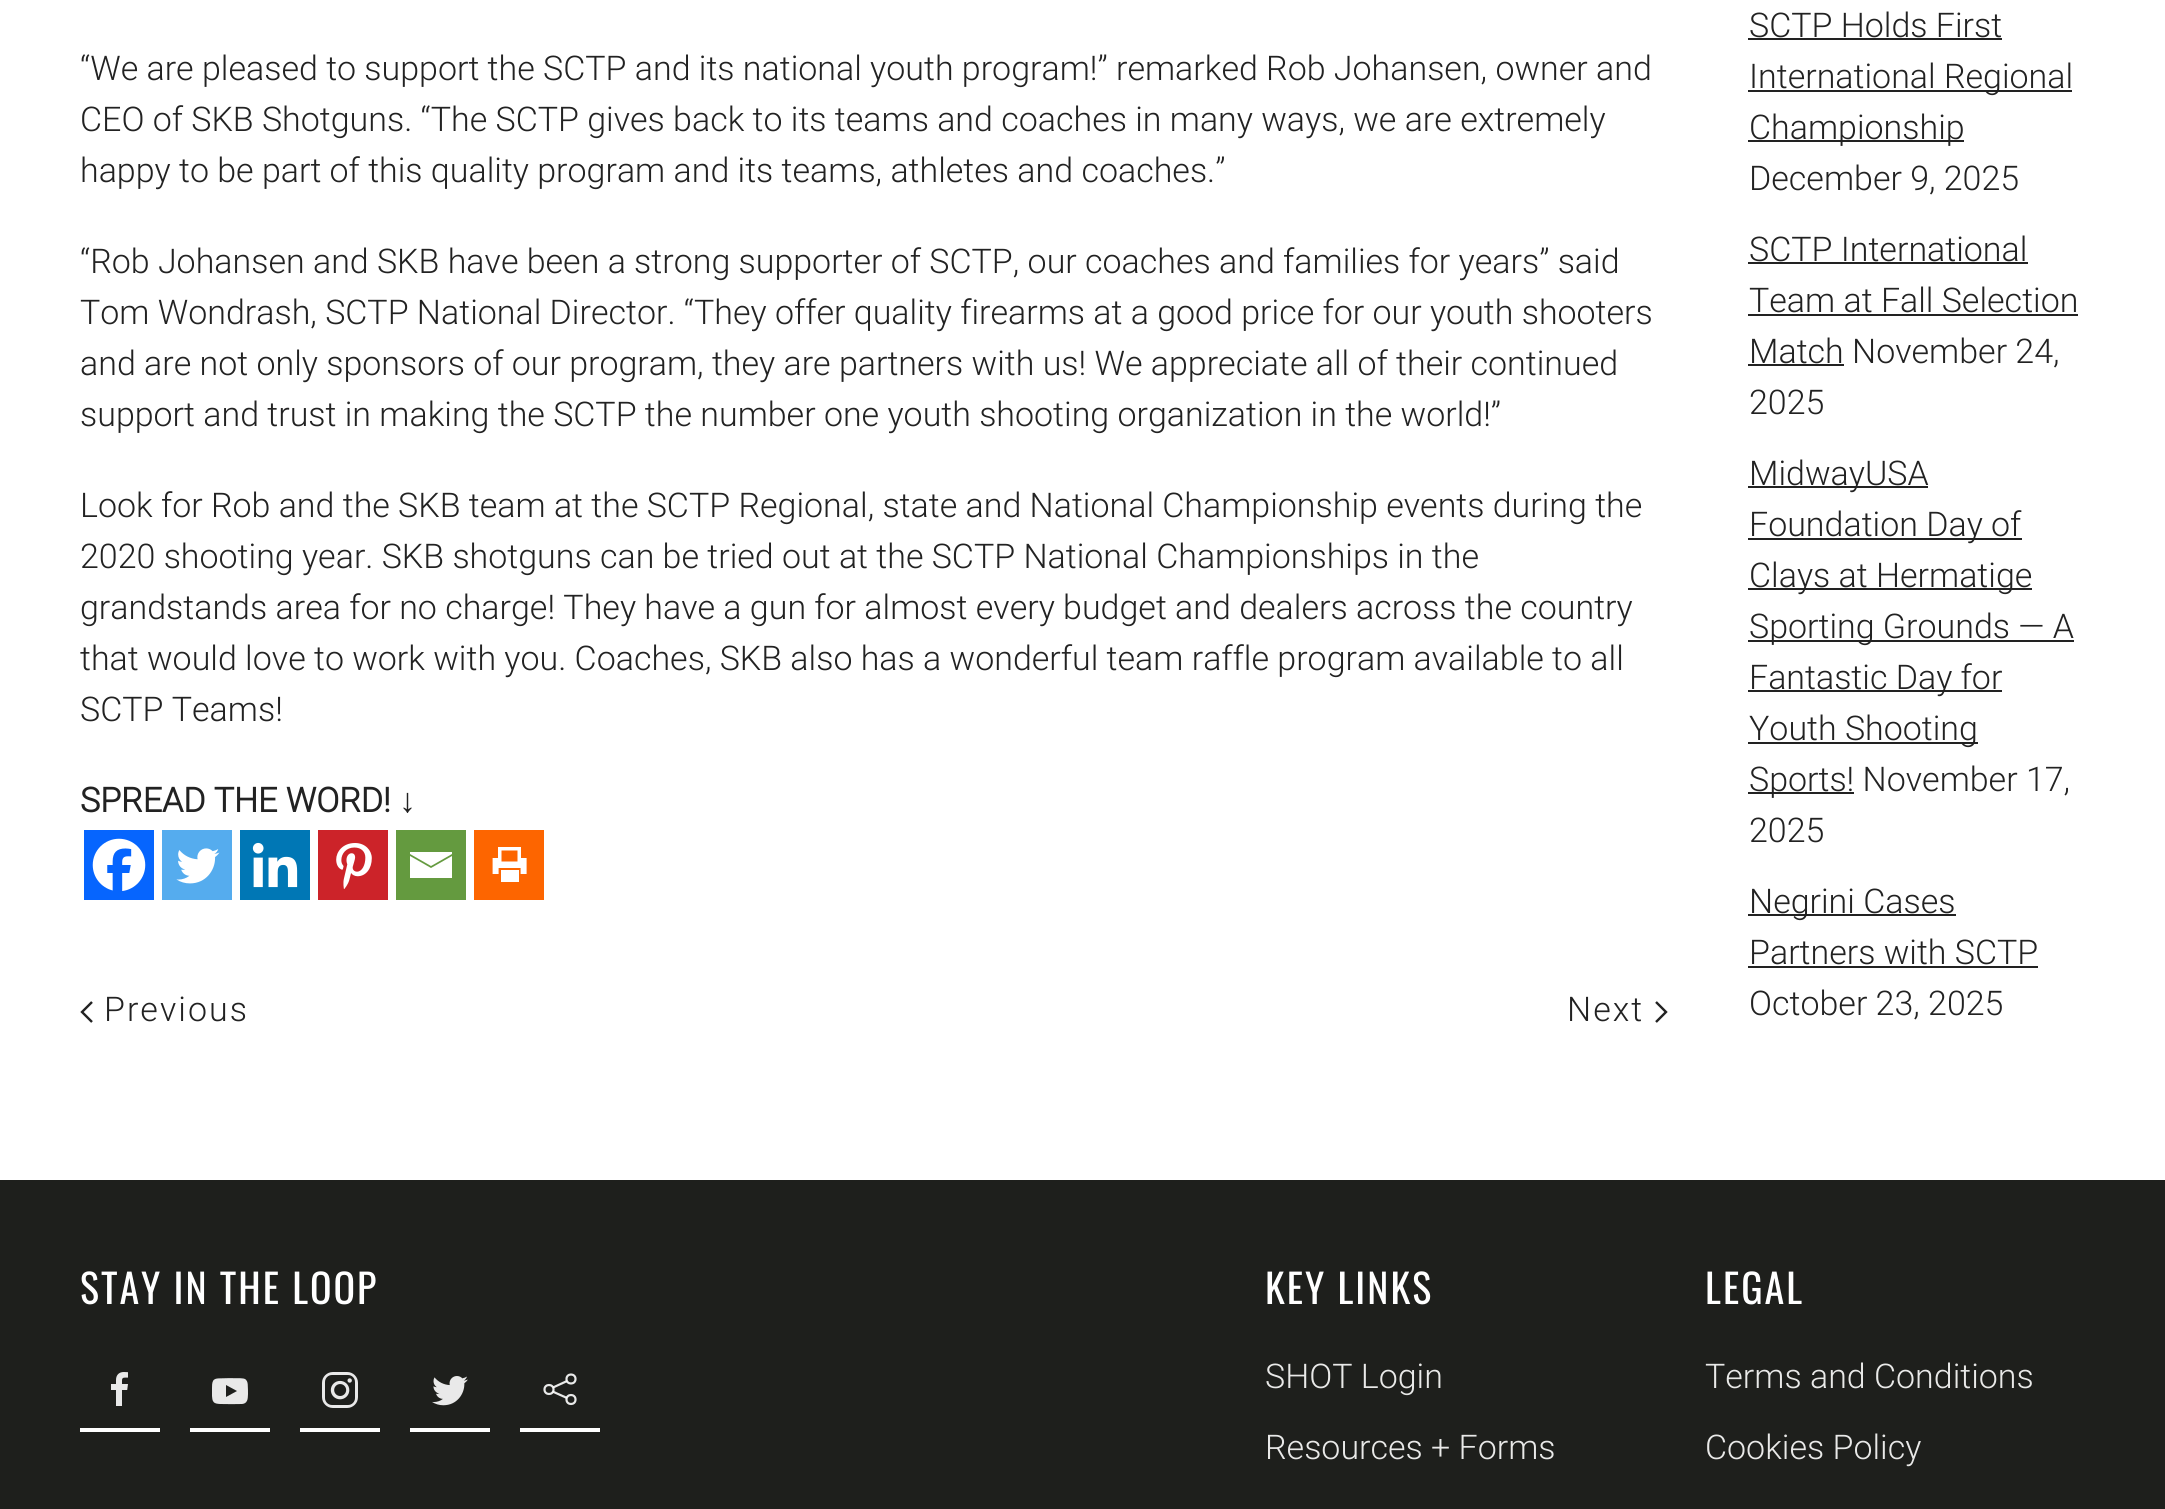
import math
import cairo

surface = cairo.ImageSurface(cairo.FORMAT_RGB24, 2165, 1509)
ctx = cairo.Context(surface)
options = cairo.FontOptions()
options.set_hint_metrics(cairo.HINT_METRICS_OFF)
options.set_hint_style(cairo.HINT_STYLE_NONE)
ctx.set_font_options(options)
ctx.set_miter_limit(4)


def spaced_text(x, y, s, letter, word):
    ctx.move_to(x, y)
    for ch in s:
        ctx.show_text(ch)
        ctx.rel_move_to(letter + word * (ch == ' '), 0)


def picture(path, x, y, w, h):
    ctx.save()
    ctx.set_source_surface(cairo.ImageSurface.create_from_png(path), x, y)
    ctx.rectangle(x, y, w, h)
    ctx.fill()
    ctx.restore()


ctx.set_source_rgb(1, 1, 1)
ctx.paint()
ctx.select_font_face("Roboto Light")
ctx.set_font_size(34)
ctx.set_source_rgb(0.133, 0.133, 0.133)
ctx.move_to(80, 80)
ctx.show_text("“We are pleased to support the SCTP and its national youth program!” remarked Rob Johansen, owner and")
ctx.move_to(80, 131)
ctx.show_text("CEO of SKB Shotguns. “The SCTP gives back to its teams and coaches in many ways, we are extremely")
ctx.move_to(80, 182)
ctx.show_text("happy to be part of this quality program and its teams, athletes and coaches.”")
ctx.move_to(80, 273)
ctx.show_text("“Rob Johansen and SKB have been a strong supporter of SCTP, our coaches and families for years” said")
ctx.move_to(80, 324)
ctx.show_text("Tom Wondrash, SCTP National Director. “They offer quality firearms at a good price for our youth shooters")
ctx.move_to(80, 375)
ctx.show_text("and are not only sponsors of our program, they are partners with us! We appreciate all of their continued")
ctx.move_to(80, 426)
ctx.show_text("support and trust in making the SCTP the number one youth shooting organization in the world!”")
ctx.move_to(80, 517)
ctx.show_text("Look for Rob and the SKB team at the SCTP Regional, state and National Championship events during the")
ctx.move_to(80, 568)
ctx.show_text("2020 shooting year. SKB shotguns can be tried out at the SCTP National Championships in the")
ctx.move_to(80, 619)
ctx.show_text("grandstands area for no charge! They have a gun for almost every budget and dealers across the country")
ctx.move_to(80, 670)
ctx.show_text("that would love to work with you. Coaches, SKB also has a wonderful team raffle program available to all")
ctx.move_to(80, 721)
ctx.show_text("SCTP Teams!")
ctx.select_font_face("Roboto", cairo.FONT_SLANT_NORMAL, cairo.FONT_WEIGHT_BOLD)
ctx.move_to(80, 812)
ctx.show_text("SPREAD THE WORD!")
ctx.select_font_face("Liberation Serif", cairo.FONT_SLANT_NORMAL, cairo.FONT_WEIGHT_BOLD)
ctx.move_to(399, 812)
ctx.show_text("↓")
ctx.set_source_rgb(0.027, 0.396, 0.996)
ctx.rectangle(84, 830, 70, 70)
ctx.fill()
picture("img1.png", 92, 838, 54, 53)
ctx.set_source_rgb(0.333, 0.675, 0.933)
ctx.rectangle(162, 830, 70, 70)
ctx.fill()
picture("img2.png", 176, 848, 44, 36)
ctx.set_source_rgb(0, 0.467, 0.71)
ctx.rectangle(240, 830, 70, 70)
ctx.fill()
picture("img3.png", 252, 842, 46, 46)
ctx.set_source_rgb(0.8, 0.137, 0.161)
ctx.rectangle(318, 830, 70, 70)
ctx.fill()
picture("img4.png", 336, 843, 36, 46)
ctx.set_source_rgb(0.392, 0.604, 0.247)
ctx.rectangle(396, 830, 70, 70)
ctx.fill()
ctx.set_source_rgb(1, 1, 1)
ctx.new_path()
ctx.move_to(408, 852)
ctx.line_to(452, 852)
ctx.line_to(452, 854)
ctx.line_to(431, 866)
ctx.line_to(410, 854)
ctx.line_to(410, 852)
ctx.move_to(410, 856)
ctx.line_to(431, 868)
ctx.line_to(452, 856)
ctx.line_to(452, 878)
ctx.line_to(410, 878)
ctx.line_to(410, 856)
ctx.fill()
ctx.set_source_rgb(0.992, 0.396, 0)
ctx.rectangle(474, 830, 70, 70)
ctx.fill()
picture("img5.png", 492, 847, 35, 35)
ctx.new_path()
ctx.move_to(92, 1002)
ctx.line_to(82, 1012)
ctx.line_to(92, 1022)
ctx.set_source_rgb(0.133, 0.133, 0.133)
ctx.set_line_width(2.4)
ctx.stroke()
ctx.select_font_face("Roboto Light")
spaced_text(104, 1021, "Previous", 2, 0)
spaced_text(1567, 1021, "Next", 2, 0)
ctx.new_path()
ctx.move_to(1656, 1002)
ctx.line_to(1666, 1012)
ctx.line_to(1656, 1022)
ctx.stroke()
ctx.move_to(1749, 37)
ctx.show_text("SCTP Holds First")
ctx.rectangle(1748, 38, 254, 2)
ctx.fill()
ctx.rectangle(1748, 90, 324, 2)
ctx.fill()
ctx.move_to(1749, 88)
ctx.show_text("International Regional")
ctx.rectangle(1748, 140, 216, 2)
ctx.fill()
ctx.move_to(1749, 139)
ctx.show_text("Championship")
ctx.move_to(1749, 190)
ctx.show_text("December 9, 2025")
ctx.move_to(1749, 261)
ctx.show_text("SCTP International")
ctx.rectangle(1748, 262, 280, 2)
ctx.fill()
ctx.move_to(1749, 312)
ctx.show_text("Team at Fall Selection")
ctx.rectangle(1748, 314, 330, 2)
ctx.fill()
ctx.rectangle(1748, 364, 96, 2)
ctx.fill()
ctx.move_to(1749, 363)
ctx.show_text("Match November 24,")
ctx.move_to(1749, 414)
ctx.show_text("2025")
ctx.rectangle(1748, 486, 180, 2)
ctx.fill()
ctx.move_to(1749, 485)
ctx.show_text("MidwayUSA")
ctx.rectangle(1748, 538, 274, 2)
ctx.fill()
ctx.move_to(1749, 536)
ctx.show_text("Foundation Day of")
ctx.rectangle(1748, 588, 284, 2)
ctx.fill()
ctx.move_to(1749, 587)
ctx.show_text("Clays at Hermatige")
ctx.rectangle(1748, 640, 326, 2)
ctx.fill()
ctx.move_to(1749, 638)
ctx.show_text("Sporting Grounds — A")
ctx.rectangle(1748, 690, 254, 2)
ctx.fill()
ctx.move_to(1749, 689)
ctx.show_text("Fantastic Day for")
ctx.rectangle(1748, 742, 230, 2)
ctx.fill()
ctx.move_to(1749, 740)
ctx.show_text("Youth Shooting")
ctx.rectangle(1748, 792, 106, 2)
ctx.fill()
ctx.move_to(1749, 791)
ctx.show_text("Sports! November 17,")
ctx.move_to(1749, 842)
ctx.show_text("2025")
ctx.rectangle(1748, 914, 208, 2)
ctx.fill()
ctx.move_to(1749, 913)
ctx.show_text("Negrini Cases")
ctx.move_to(1749, 964)
ctx.show_text("Partners with SCTP")
ctx.rectangle(1748, 966, 290, 2)
ctx.fill()
ctx.move_to(1749, 1015)
ctx.show_text("October 23, 2025")
ctx.set_source_rgb(0.118, 0.122, 0.11)
ctx.rectangle(0, 1180, 2165, 329)
ctx.fill()
ctx.select_font_face("Oswald")
ctx.set_font_size(40)
ctx.set_source_rgb(1, 1, 1)
spaced_text(80, 1304, "STAY IN THE LOOP", 2, 0)
ctx.rectangle(80, 1428, 80, 4)
ctx.fill()
picture("img6.png", 111, 1372, 17, 34)
ctx.rectangle(190, 1428, 80, 4)
ctx.fill()
picture("img7.png", 212, 1378, 36, 27)
ctx.rectangle(300, 1428, 80, 4)
ctx.fill()
picture("img8.png", 322, 1372, 36, 36)
ctx.rectangle(410, 1428, 80, 4)
ctx.fill()
picture("img9.png", 432, 1376, 36, 30)
ctx.rectangle(520, 1428, 80, 4)
ctx.fill()
ctx.new_path()
ctx.move_to(567, 1398)
ctx.line_to(552.5, 1391.5)
ctx.move_to(567, 1381)
ctx.line_to(553, 1387.5)
ctx.set_source_rgb(0.914, 0.914, 0.91)
ctx.set_line_width(2.2)
ctx.stroke()
ctx.arc(549, 1389.5, 4.5, 0, 2 * math.pi)
ctx.set_source_rgba(1, 1, 1, 0.9)
ctx.stroke()
ctx.arc(571, 1379, 4.5, 0, 2 * math.pi)
ctx.stroke()
ctx.arc(571, 1399.5, 4.5, 0, 2 * math.pi)
ctx.stroke()
ctx.set_source_rgb(1, 1, 1)
spaced_text(1265, 1304, "KEY LINKS", 2, 0)
ctx.select_font_face("Roboto Light")
ctx.set_font_size(34)
ctx.set_source_rgb(0.914, 0.914, 0.91)
ctx.move_to(1265, 1388)
ctx.show_text("SHOT Login")
ctx.move_to(1265, 1459)
ctx.show_text("Resources + Forms")
ctx.select_font_face("Oswald")
ctx.set_font_size(40)
ctx.set_source_rgb(1, 1, 1)
spaced_text(1705, 1304, "LEGAL", 2, 0)
ctx.select_font_face("Roboto Light")
ctx.set_font_size(34)
ctx.set_source_rgb(0.914, 0.914, 0.91)
ctx.move_to(1705, 1388)
ctx.show_text("Terms and Conditions")
ctx.move_to(1705, 1459)
ctx.show_text("Cookies Policy")
surface.write_to_png("page.png")
